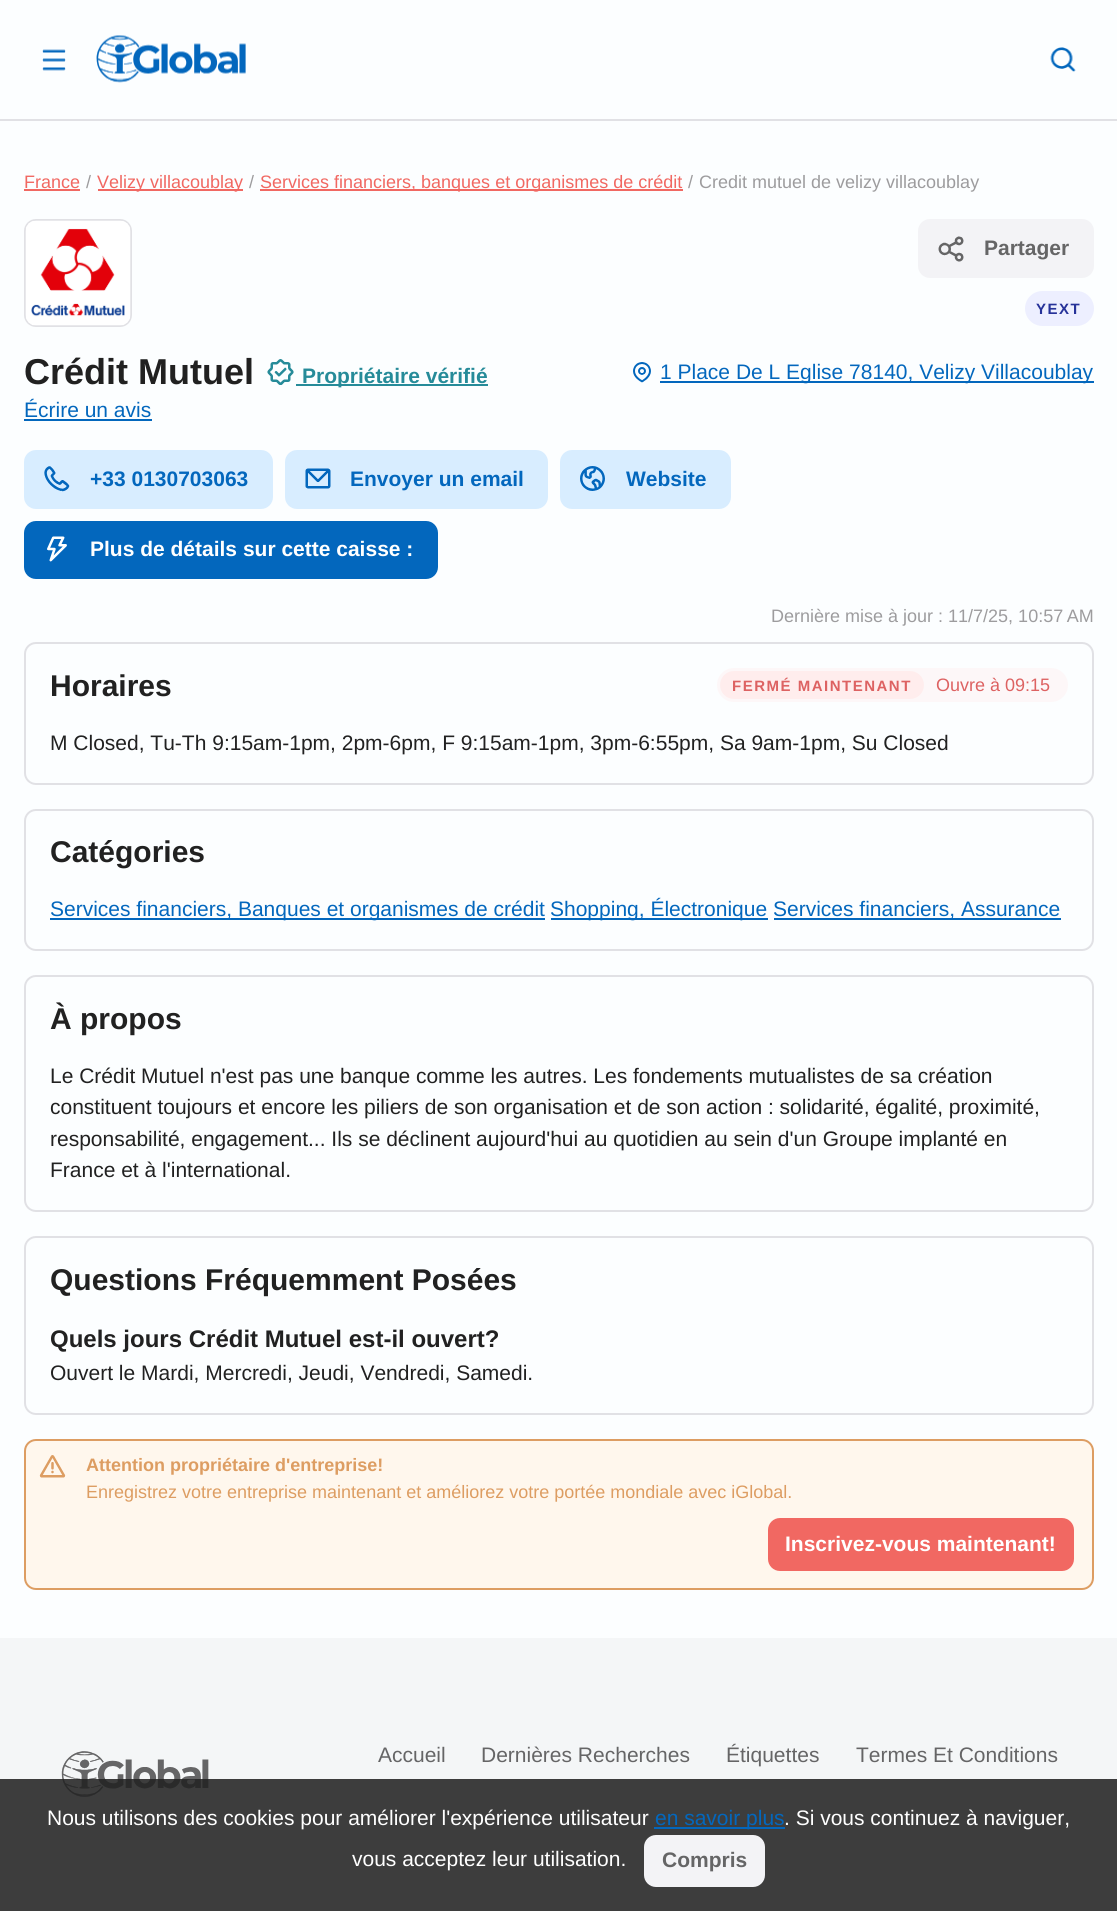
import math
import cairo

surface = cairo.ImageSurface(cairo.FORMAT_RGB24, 1117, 1911)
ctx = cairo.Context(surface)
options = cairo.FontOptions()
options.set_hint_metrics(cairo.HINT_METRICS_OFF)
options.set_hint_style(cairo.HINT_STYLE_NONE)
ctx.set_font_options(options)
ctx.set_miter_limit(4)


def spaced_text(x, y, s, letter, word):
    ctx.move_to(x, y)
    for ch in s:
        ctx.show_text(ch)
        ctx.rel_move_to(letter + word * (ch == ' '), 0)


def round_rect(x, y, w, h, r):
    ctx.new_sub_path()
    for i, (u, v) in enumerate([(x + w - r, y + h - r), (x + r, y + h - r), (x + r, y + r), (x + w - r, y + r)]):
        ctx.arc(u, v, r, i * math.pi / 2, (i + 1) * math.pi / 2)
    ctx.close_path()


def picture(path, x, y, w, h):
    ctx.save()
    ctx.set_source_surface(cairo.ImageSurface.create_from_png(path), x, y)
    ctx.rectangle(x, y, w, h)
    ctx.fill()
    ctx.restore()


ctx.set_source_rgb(0.988, 0.996, 1)
ctx.paint()
ctx.set_source_rgb(0.882, 0.882, 0.898)
ctx.rectangle(0, 119, 1117, 2)
ctx.fill()
picture("img1.png", 42, 49, 24, 22)
picture("img2.png", 96, 35, 150, 48)
picture("img3.png", 1050, 47, 26, 25)
ctx.select_font_face("Liberation Sans")
ctx.set_font_size(18)
ctx.set_source_rgb(0.945, 0.408, 0.384)
ctx.move_to(24, 188)
ctx.show_text("France")
ctx.rectangle(24, 189, 56, 2)
ctx.fill()
ctx.set_source_rgb(0.616, 0.612, 0.62)
ctx.move_to(86, 188)
ctx.show_text("/")
ctx.set_source_rgb(0.945, 0.408, 0.384)
ctx.rectangle(98, 189, 145, 2)
ctx.fill()
ctx.move_to(97, 188)
ctx.show_text("Velizy villacoublay")
ctx.set_source_rgb(0.616, 0.612, 0.62)
ctx.move_to(249, 188)
ctx.show_text("/")
ctx.set_source_rgb(0.945, 0.408, 0.384)
ctx.rectangle(260, 189, 423, 2)
ctx.fill()
ctx.move_to(260, 188)
ctx.show_text("Services financiers, banques et organismes de crédit")
ctx.set_source_rgb(0.616, 0.612, 0.62)
ctx.move_to(688, 188)
ctx.show_text("/")
ctx.move_to(699, 188)
ctx.show_text("Credit mutuel de velizy villacoublay")
round_rect(25, 220, 106, 106, 11)
ctx.set_source_rgb(0.882, 0.882, 0.898)
ctx.stroke()
picture("img4.png", 25, 220, 106, 106)
ctx.set_source_rgb(0.953, 0.953, 0.961)
round_rect(918, 219, 176, 59, 12)
ctx.fill()
picture("img5.png", 938, 236, 26, 26)
ctx.select_font_face("Liberation Sans", cairo.FONT_SLANT_NORMAL, cairo.FONT_WEIGHT_BOLD)
ctx.set_font_size(21)
ctx.set_source_rgb(0.396, 0.396, 0.4)
ctx.move_to(984, 255)
ctx.show_text("Partager")
ctx.set_source_rgb(0.929, 0.937, 1)
round_rect(1025, 291, 69, 35, 17.5)
ctx.fill()
ctx.set_font_size(15)
ctx.set_source_rgb(0.149, 0.196, 0.6)
spaced_text(1036, 314, "YEXT", 1.5, 0)
ctx.set_font_size(36)
ctx.set_source_rgb(0.129, 0.129, 0.129)
ctx.move_to(24, 384)
ctx.show_text("Crédit Mutuel")
picture("img6.png", 267, 359, 27, 26)
ctx.set_source_rgb(0.149, 0.545, 0.6)
ctx.rectangle(296, 384, 192, 2)
ctx.fill()
ctx.set_font_size(21)
ctx.move_to(302, 383)
ctx.show_text("Propriétaire vérifié")
picture("img7.png", 633, 362, 18, 21)
ctx.set_source_rgb(0.012, 0.404, 0.741)
ctx.rectangle(660, 381, 434, 2)
ctx.fill()
ctx.select_font_face("Liberation Sans")
ctx.move_to(660, 379)
ctx.show_text("1 Place De L Eglise 78140, Velizy Villacoublay")
ctx.move_to(24, 417)
ctx.show_text("Écrire un avis")
ctx.rectangle(24, 419, 128, 2)
ctx.fill()
ctx.set_source_rgb(0.847, 0.929, 1)
round_rect(24, 450, 249, 59, 12)
ctx.fill()
picture("img8.png", 44, 466, 26, 26)
ctx.select_font_face("Liberation Sans", cairo.FONT_SLANT_NORMAL, cairo.FONT_WEIGHT_BOLD)
ctx.set_source_rgb(0.012, 0.404, 0.741)
ctx.move_to(90, 486)
ctx.show_text("+33 0130703063")
ctx.set_source_rgb(0.847, 0.929, 1)
round_rect(285, 450, 263, 59, 12)
ctx.fill()
picture("img9.png", 305, 468, 26, 21)
ctx.set_source_rgb(0.012, 0.404, 0.741)
ctx.move_to(350, 486)
ctx.show_text("Envoyer un email")
ctx.set_source_rgb(0.847, 0.929, 1)
round_rect(560, 450, 171, 59, 12)
ctx.fill()
picture("img10.png", 580, 466, 25, 25)
ctx.set_source_rgb(0.012, 0.404, 0.741)
ctx.move_to(626, 486)
ctx.show_text("Website")
round_rect(24, 521, 414, 58, 12)
ctx.fill()
picture("img11.png", 47, 536, 20, 26)
ctx.set_source_rgb(1, 1, 1)
ctx.move_to(90, 556)
ctx.show_text("Plus de détails sur cette caisse :")
ctx.select_font_face("Liberation Sans")
ctx.set_font_size(18)
ctx.set_source_rgb(0.616, 0.612, 0.62)
ctx.move_to(771, 622)
ctx.show_text("Dernière mise à jour : 11/7/25, 10:57 AM")
round_rect(25, 643, 1068, 141, 11)
ctx.set_source_rgb(0.882, 0.882, 0.898)
ctx.stroke()
ctx.select_font_face("Liberation Sans", cairo.FONT_SLANT_NORMAL, cairo.FONT_WEIGHT_BOLD)
ctx.set_font_size(30)
ctx.set_source_rgb(0.129, 0.129, 0.129)
ctx.move_to(50, 696)
ctx.show_text("Horaires")
ctx.set_source_rgb(0.992, 0.965, 0.969)
round_rect(717, 668, 351, 34, 17)
ctx.fill()
ctx.set_source_rgb(1, 0.929, 0.929)
round_rect(720, 671, 204, 28, 14)
ctx.fill()
ctx.set_font_size(15)
ctx.set_source_rgb(0.867, 0.384, 0.384)
spaced_text(732, 691, "FERMÉ MAINTENANT", 1.5, 0)
ctx.select_font_face("Liberation Sans")
ctx.set_font_size(18)
ctx.move_to(936, 691)
ctx.show_text("Ouvre à 09:15")
ctx.set_font_size(21)
ctx.set_source_rgb(0.129, 0.129, 0.129)
ctx.move_to(50, 750)
ctx.show_text("M Closed, Tu-Th 9:15am-1pm, 2pm-6pm, F 9:15am-1pm, 3pm-6:55pm, Sa 9am-1pm, Su Closed")
round_rect(25, 810, 1068, 140, 11)
ctx.set_source_rgb(0.882, 0.882, 0.898)
ctx.stroke()
ctx.select_font_face("Liberation Sans", cairo.FONT_SLANT_NORMAL, cairo.FONT_WEIGHT_BOLD)
ctx.set_font_size(30)
ctx.set_source_rgb(0.129, 0.129, 0.129)
ctx.move_to(50, 862)
ctx.show_text("Catégories")
ctx.set_source_rgb(0.012, 0.404, 0.741)
ctx.rectangle(50, 918, 495, 2)
ctx.fill()
ctx.select_font_face("Liberation Sans")
ctx.set_font_size(21)
ctx.move_to(50, 916)
ctx.show_text("Services financiers, Banques et organismes de crédit")
ctx.rectangle(551, 918, 217, 2)
ctx.fill()
ctx.move_to(550, 916)
ctx.show_text("Shopping, Électronique")
ctx.rectangle(774, 918, 287, 2)
ctx.fill()
ctx.move_to(773, 916)
ctx.show_text("Services financiers, Assurance")
round_rect(25, 976, 1068, 235, 11)
ctx.set_source_rgb(0.882, 0.882, 0.898)
ctx.stroke()
ctx.select_font_face("Liberation Sans", cairo.FONT_SLANT_NORMAL, cairo.FONT_WEIGHT_BOLD)
ctx.set_font_size(30)
ctx.set_source_rgb(0.129, 0.129, 0.129)
ctx.move_to(50, 1029)
ctx.show_text("À propos")
ctx.select_font_face("Liberation Sans")
ctx.set_font_size(21)
ctx.move_to(50, 1083)
ctx.show_text("Le Crédit Mutuel n'est pas une banque comme les autres. Les fondements mutualistes de sa création")
ctx.move_to(50, 1114)
ctx.show_text("constituent toujours et encore les piliers de son organisation et de son action : solidarité, égalité, proximité,")
ctx.move_to(50, 1146)
ctx.show_text("responsabilité, engagement... Ils se déclinent aujourd'hui au quotidien au sein d'un Groupe implanté en")
ctx.move_to(50, 1177)
ctx.show_text("France et à l'international.")
round_rect(25, 1237, 1068, 177, 11)
ctx.set_source_rgb(0.882, 0.882, 0.898)
ctx.stroke()
ctx.select_font_face("Liberation Sans", cairo.FONT_SLANT_NORMAL, cairo.FONT_WEIGHT_BOLD)
ctx.set_font_size(30)
ctx.set_source_rgb(0.129, 0.129, 0.129)
ctx.move_to(50, 1290)
ctx.show_text("Questions Fréquemment Posées")
ctx.set_font_size(24)
ctx.move_to(50, 1347)
ctx.show_text("Quels jours Crédit Mutuel est-il ouvert?")
ctx.select_font_face("Liberation Sans")
ctx.set_font_size(21)
ctx.move_to(50, 1380)
ctx.show_text("Ouvert le Mardi, Mercredi, Jeudi, Vendredi, Samedi.")
ctx.set_source_rgb(1, 0.965, 0.929)
round_rect(25, 1440, 1068, 149, 11)
ctx.fill_preserve()
ctx.set_source_rgb(0.867, 0.616, 0.384)
ctx.stroke()
picture("img12.png", 39, 1455, 27, 23)
ctx.select_font_face("Liberation Sans", cairo.FONT_SLANT_NORMAL, cairo.FONT_WEIGHT_BOLD)
ctx.set_font_size(18)
ctx.move_to(86, 1471)
ctx.show_text("Attention propriétaire d'entreprise!")
ctx.select_font_face("Liberation Sans")
ctx.move_to(86, 1498)
ctx.show_text("Enregistrez votre entreprise maintenant et améliorez votre portée mondiale avec iGlobal.")
ctx.set_source_rgb(0.945, 0.408, 0.384)
round_rect(768, 1518, 306, 53, 12)
ctx.fill()
ctx.select_font_face("Liberation Sans", cairo.FONT_SLANT_NORMAL, cairo.FONT_WEIGHT_BOLD)
ctx.set_font_size(21)
ctx.set_source_rgb(1, 1, 1)
ctx.move_to(785, 1551)
ctx.show_text("Inscrivez-vous maintenant!")
ctx.set_source_rgb(0.957, 0.961, 0.965)
ctx.rectangle(0, 1638, 1117, 273)
ctx.fill()
picture("img13.png", 61, 1751, 148, 46)
ctx.select_font_face("Liberation Sans")
ctx.set_source_rgb(0.396, 0.396, 0.4)
ctx.move_to(378, 1762)
ctx.show_text("Accueil")
ctx.move_to(481, 1762)
ctx.show_text("Dernières Recherches")
ctx.move_to(726, 1762)
ctx.show_text("Étiquettes")
ctx.move_to(856, 1762)
ctx.show_text("Termes Et Conditions")
ctx.set_source_rgba(0.133, 0.133, 0.133, 0.87)
ctx.rectangle(0, 1779, 1117, 132)
ctx.fill()
ctx.set_source_rgb(1, 1, 1)
ctx.move_to(47, 1825)
ctx.show_text("Nous utilisons des cookies pour améliorer l'expérience utilisateur")
ctx.set_source_rgb(0.012, 0.404, 0.741)
ctx.rectangle(654, 1827, 131, 2)
ctx.fill()
ctx.move_to(655, 1825)
ctx.show_text("en savoir plus")
ctx.set_source_rgb(1, 1, 1)
ctx.move_to(784, 1825)
ctx.show_text(". Si vous continuez à naviguer,")
ctx.move_to(352, 1866)
ctx.show_text("vous acceptez leur utilisation.")
ctx.set_source_rgb(0.953, 0.953, 0.961)
round_rect(644, 1835, 121, 52, 12)
ctx.fill()
ctx.select_font_face("Liberation Sans", cairo.FONT_SLANT_NORMAL, cairo.FONT_WEIGHT_BOLD)
ctx.set_source_rgb(0.396, 0.396, 0.4)
ctx.move_to(662, 1867)
ctx.show_text("Compris")
surface.write_to_png("page.png")
